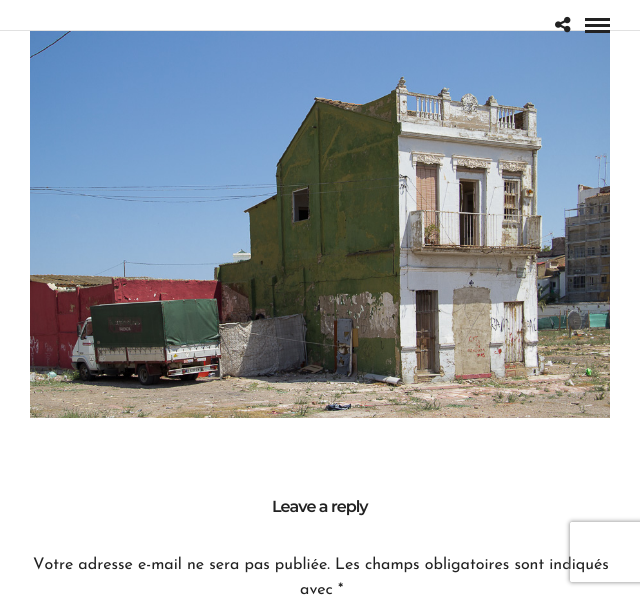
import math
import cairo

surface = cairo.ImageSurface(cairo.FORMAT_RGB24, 640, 596)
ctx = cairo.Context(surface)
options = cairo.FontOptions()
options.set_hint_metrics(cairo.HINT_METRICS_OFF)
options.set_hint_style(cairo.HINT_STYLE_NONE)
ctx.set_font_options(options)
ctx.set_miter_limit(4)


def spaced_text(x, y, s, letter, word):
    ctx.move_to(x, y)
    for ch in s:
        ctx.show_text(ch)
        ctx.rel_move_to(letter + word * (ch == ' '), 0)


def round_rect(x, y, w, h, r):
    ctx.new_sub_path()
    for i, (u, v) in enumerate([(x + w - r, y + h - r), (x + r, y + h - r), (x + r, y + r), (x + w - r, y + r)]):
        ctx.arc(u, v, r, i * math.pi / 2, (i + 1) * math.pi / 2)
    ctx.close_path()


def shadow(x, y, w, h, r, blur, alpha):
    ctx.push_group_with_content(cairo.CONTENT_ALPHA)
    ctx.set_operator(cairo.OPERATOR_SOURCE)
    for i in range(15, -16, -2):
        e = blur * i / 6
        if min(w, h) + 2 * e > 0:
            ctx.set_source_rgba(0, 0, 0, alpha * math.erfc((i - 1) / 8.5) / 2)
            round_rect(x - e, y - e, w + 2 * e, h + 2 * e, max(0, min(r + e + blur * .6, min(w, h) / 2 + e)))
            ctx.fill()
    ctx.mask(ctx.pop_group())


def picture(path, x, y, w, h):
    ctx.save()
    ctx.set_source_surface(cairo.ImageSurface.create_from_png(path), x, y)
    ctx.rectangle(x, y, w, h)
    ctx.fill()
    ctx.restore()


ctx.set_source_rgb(1, 1, 1)
ctx.paint()
ctx.set_source_rgb(0.882, 0.882, 0.882)
ctx.rectangle(0, 30, 640, 1)
ctx.fill()
picture("img2.png", 30, 31, 580, 387)
picture("img1.png", 555, 16, 16, 17)
ctx.set_source_rgb(0.133, 0.133, 0.133)
ctx.rectangle(585, 18, 25, 3)
ctx.fill()
ctx.rectangle(585, 24, 25, 3)
ctx.fill()
ctx.rectangle(585, 30, 25, 3)
ctx.fill()
ctx.select_font_face("Montserrat SemiBold")
ctx.set_font_size(16)
spaced_text(272, 512, "Leave a reply", -1, 0)
ctx.select_font_face("Josefin Sans")
ctx.move_to(33, 569)
ctx.show_text("Votre adresse e-mail ne sera pas publiée. Les champs obligatoires sont indiqués")
ctx.move_to(300, 594)
ctx.show_text("avec *")
ctx.save()
ctx.set_fill_rule(cairo.FILL_RULE_EVEN_ODD)
ctx.new_path()
ctx.move_to(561, 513)
ctx.line_to(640, 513)
ctx.line_to(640, 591)
ctx.line_to(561, 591)
ctx.close_path()
ctx.move_to(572, 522)
ctx.line_to(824, 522)
ctx.curve_to(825, 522, 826, 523, 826, 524)
ctx.line_to(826, 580)
ctx.curve_to(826, 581, 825, 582, 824, 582)
ctx.line_to(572, 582)
ctx.curve_to(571, 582, 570, 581, 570, 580)
ctx.line_to(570, 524)
ctx.curve_to(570, 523, 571, 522, 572, 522)
ctx.close_path()
ctx.clip()
ctx.set_source_rgb(0.502, 0.502, 0.502)
shadow(570, 522, 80, 60, 2, 2.5, 1)
ctx.restore()
surface.write_to_png("page.png")
